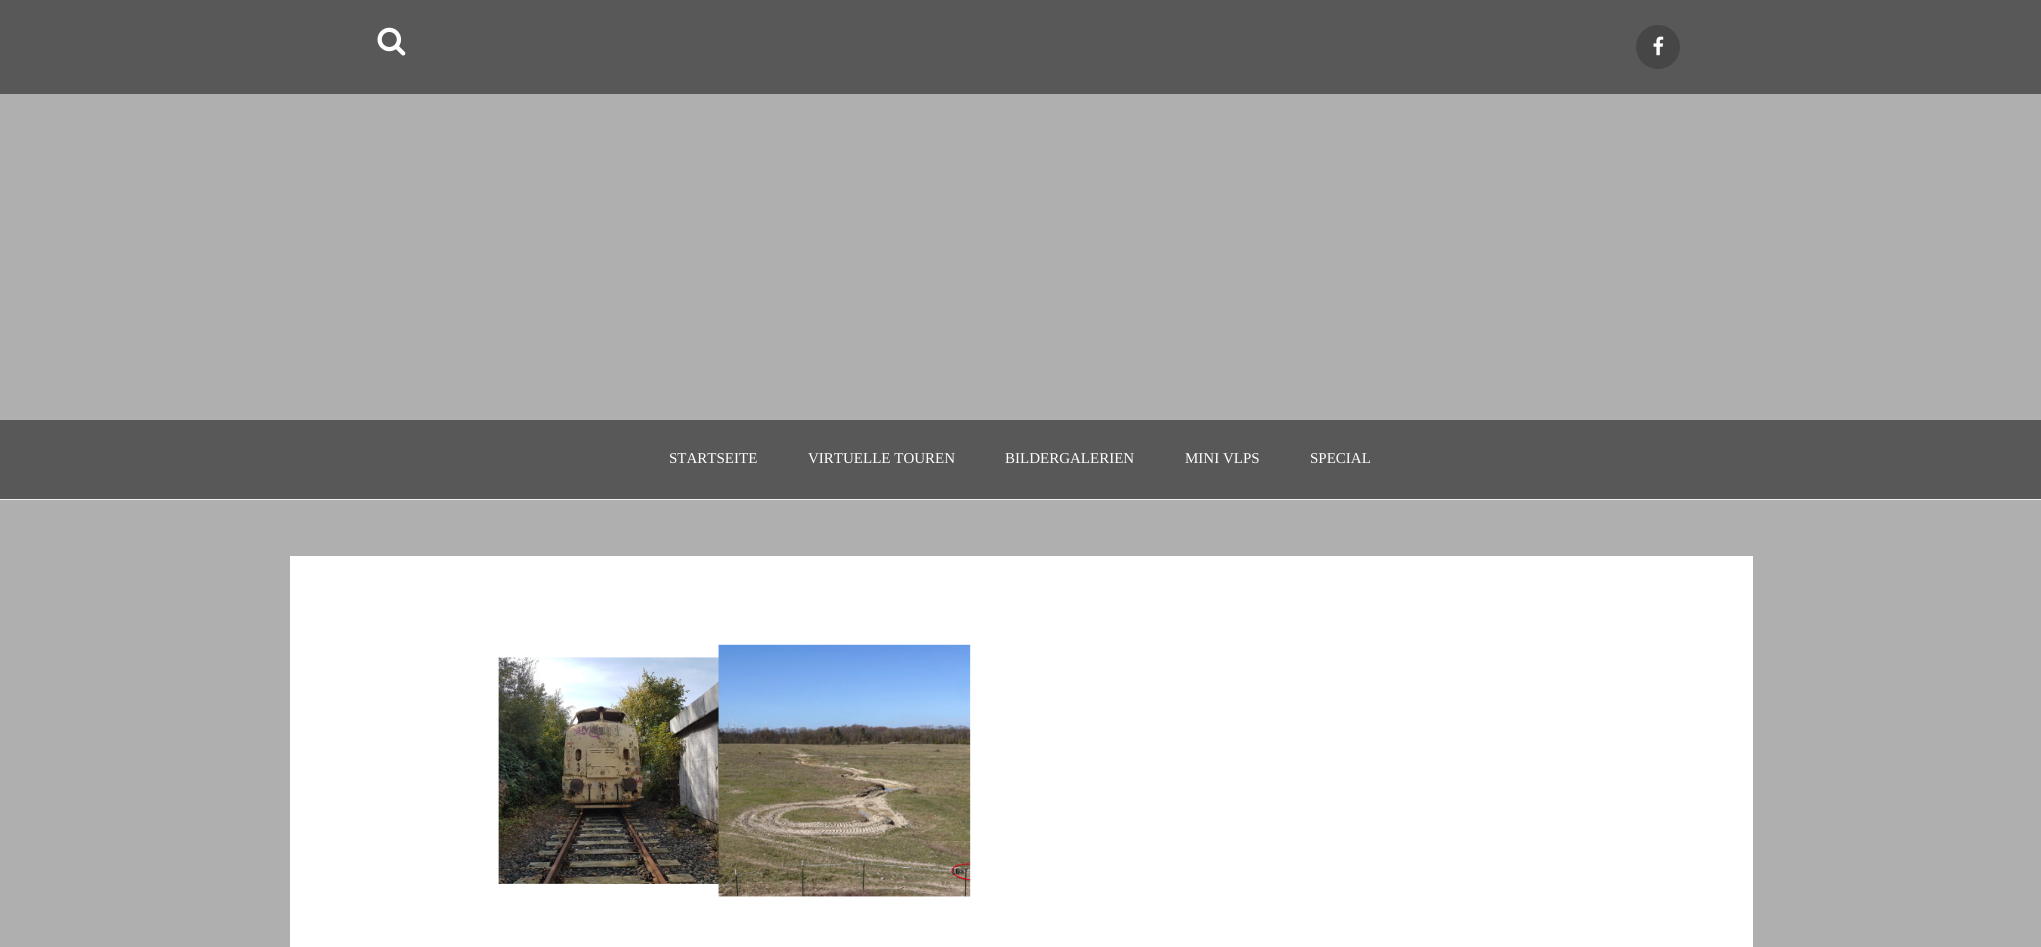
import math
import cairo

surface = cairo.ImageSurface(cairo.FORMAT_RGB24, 2041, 947)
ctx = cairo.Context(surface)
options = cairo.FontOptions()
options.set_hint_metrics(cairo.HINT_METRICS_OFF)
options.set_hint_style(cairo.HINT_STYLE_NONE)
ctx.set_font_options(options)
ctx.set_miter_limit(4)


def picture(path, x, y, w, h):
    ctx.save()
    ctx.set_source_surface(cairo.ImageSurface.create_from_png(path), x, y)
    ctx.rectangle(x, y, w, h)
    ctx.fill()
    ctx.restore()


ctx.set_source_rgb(0.686, 0.686, 0.686)
ctx.paint()
ctx.set_source_rgb(0.345, 0.345, 0.345)
ctx.rectangle(0, 0, 2041, 94)
ctx.fill()
picture("img1.png", 377, 27, 29, 29)
ctx.set_source_rgb(0.275, 0.275, 0.275)
ctx.arc(1658, 47, 22, 0, 2 * math.pi)
ctx.fill()
picture("img2.png", 1653, 36, 11, 20)
ctx.set_source_rgb(0.345, 0.345, 0.345)
ctx.rectangle(0, 420, 2041, 79)
ctx.fill()
ctx.set_source_rgb(0.941, 0.941, 0.941)
ctx.rectangle(0, 499, 2041, 1)
ctx.fill()
ctx.select_font_face("Liberation Serif")
ctx.set_font_size(15)
ctx.set_source_rgb(1, 1, 1)
ctx.move_to(669, 463)
ctx.show_text("STARTSEITE")
ctx.move_to(808, 463)
ctx.show_text("VIRTUELLE TOUREN")
ctx.move_to(1005, 463)
ctx.show_text("BILDERGALERIEN")
ctx.move_to(1185, 463)
ctx.show_text("MINI VLPS")
ctx.move_to(1310, 463)
ctx.show_text("SPECIAL")
ctx.rectangle(290, 556, 1463, 391)
ctx.fill()
picture("img3.png", 498, 657, 221, 227)
picture("img4.png", 718, 644, 253, 253)
surface.write_to_png("page.png")
